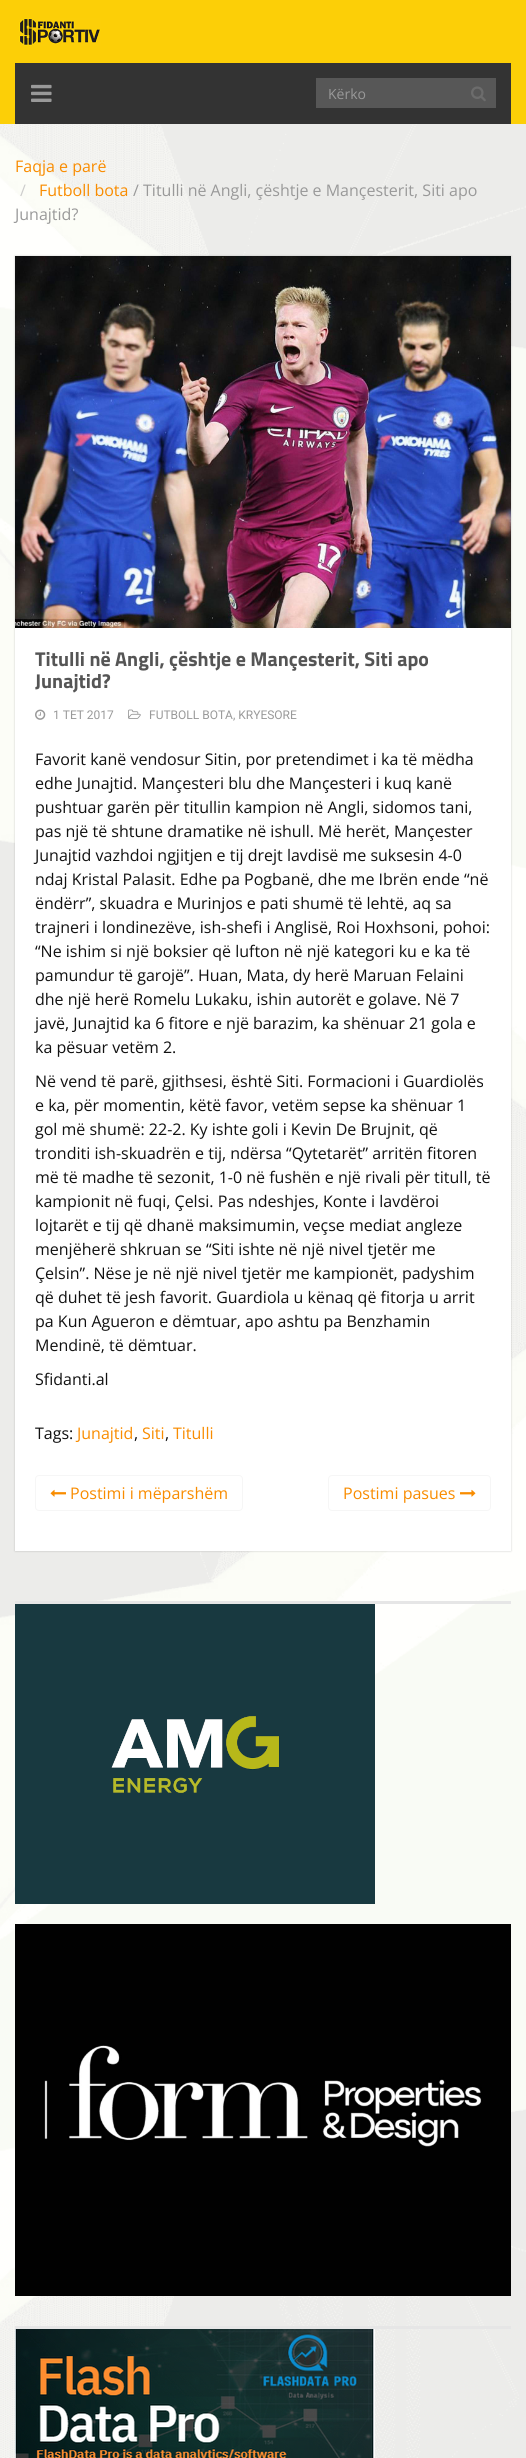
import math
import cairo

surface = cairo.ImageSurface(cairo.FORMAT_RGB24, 526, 2458)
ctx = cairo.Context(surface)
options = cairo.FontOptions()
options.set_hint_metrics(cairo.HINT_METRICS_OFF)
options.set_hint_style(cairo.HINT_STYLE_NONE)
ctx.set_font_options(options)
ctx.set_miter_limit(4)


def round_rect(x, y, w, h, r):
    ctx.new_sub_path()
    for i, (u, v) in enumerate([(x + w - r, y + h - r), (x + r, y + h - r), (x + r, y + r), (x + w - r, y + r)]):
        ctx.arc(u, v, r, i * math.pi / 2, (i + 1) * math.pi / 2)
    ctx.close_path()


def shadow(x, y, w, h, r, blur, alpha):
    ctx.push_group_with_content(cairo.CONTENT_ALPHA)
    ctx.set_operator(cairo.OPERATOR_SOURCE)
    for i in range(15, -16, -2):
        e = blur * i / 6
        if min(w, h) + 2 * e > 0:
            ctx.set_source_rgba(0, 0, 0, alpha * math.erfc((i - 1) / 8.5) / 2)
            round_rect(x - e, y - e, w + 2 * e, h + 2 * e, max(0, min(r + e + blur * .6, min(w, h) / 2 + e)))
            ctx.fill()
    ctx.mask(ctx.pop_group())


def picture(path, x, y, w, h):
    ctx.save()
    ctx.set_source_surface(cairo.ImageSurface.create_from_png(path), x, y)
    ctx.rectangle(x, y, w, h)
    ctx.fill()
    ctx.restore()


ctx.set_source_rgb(1, 1, 1)
ctx.paint()
picture("img1.png", 0, 124, 526, 2334)
ctx.set_source_rgb(0.988, 0.812, 0.031)
ctx.rectangle(0, 0, 526, 124)
ctx.fill()
picture("img2.png", 19, 18, 82, 28)
ctx.set_source_rgb(0.2, 0.2, 0.2)
ctx.rectangle(15, 63, 496, 61)
ctx.fill()
picture("img3.png", 31, 84, 21, 18)
ctx.set_source_rgb(0.341, 0.341, 0.341)
ctx.rectangle(316, 78, 180, 30)
ctx.fill()
ctx.select_font_face("Open Sans")
ctx.set_font_size(14)
ctx.set_source_rgb(0.6, 0.6, 0.6)
ctx.move_to(328, 99)
ctx.show_text("Kërko")
picture("img4.png", 471, 86, 15, 16)
ctx.set_font_size(16)
ctx.set_source_rgb(0.973, 0.549, 0)
ctx.move_to(15, 172)
ctx.show_text("Faqja e parë")
ctx.set_source_rgb(0.8, 0.8, 0.8)
ctx.move_to(20, 196)
ctx.show_text("/")
ctx.set_source_rgb(0.973, 0.549, 0)
ctx.move_to(39, 196)
ctx.show_text("Futboll bota")
ctx.set_source_rgb(0.6, 0.6, 0.6)
ctx.move_to(133, 196)
ctx.show_text("/ Titulli në Angli, çështje e Mançesterit, Siti apo")
ctx.move_to(15, 220)
ctx.show_text("Junajtid?")
ctx.set_source_rgb(0, 0, 0)
shadow(15, 256, 496, 1295, 0, 1, 0.2)
ctx.set_source_rgb(1, 1, 1)
ctx.rectangle(15, 628, 496, 923)
ctx.fill()
picture("img5.png", 15, 256, 496, 372)
ctx.select_font_face("Titillium Web", cairo.FONT_SLANT_NORMAL, cairo.FONT_WEIGHT_BOLD)
ctx.set_font_size(20)
ctx.set_source_rgb(0.333, 0.333, 0.333)
ctx.move_to(35, 666)
ctx.show_text("Titulli në Angli, çështje e Mançesterit, Siti apo")
ctx.move_to(35, 688)
ctx.show_text("Junajtid?")
picture("img6.png", 35, 709, 11, 11)
ctx.select_font_face("Roboto")
ctx.set_font_size(12)
ctx.set_source_rgb(0.6, 0.6, 0.6)
ctx.move_to(53, 719)
ctx.show_text("1 TET 2017")
picture("img7.png", 128, 709, 13, 10)
ctx.move_to(149, 719)
ctx.show_text("FUTBOLL BOTA, KRYESORE")
ctx.select_font_face("Open Sans")
ctx.set_font_size(16)
ctx.set_source_rgb(0.067, 0.067, 0.067)
ctx.move_to(35, 765)
ctx.show_text("Favorit kanë vendosur Sitin, por pretendimet i ka të mëdha")
ctx.move_to(35, 789)
ctx.show_text("edhe Junajtid. Mançesteri blu dhe Mançesteri i kuq kanë")
ctx.move_to(35, 813)
ctx.show_text("pushtuar garën për titullin kampion në Angli, sidomos tani,")
ctx.move_to(35, 837)
ctx.show_text("pas një të shtune dramatike në ishull. Më herët, Mançester")
ctx.move_to(35, 861)
ctx.show_text("Junajtid vazhdoi ngjitjen e tij drejt lavdisë me suksesin 4-0")
ctx.move_to(35, 885)
ctx.show_text("ndaj Kristal Palasit. Edhe pa Pogbanë, dhe me Ibrën ende “në")
ctx.move_to(35, 909)
ctx.show_text("ëndërr”, skuadra e Murinjos e pati shumë të lehtë, aq sa")
ctx.move_to(35, 933)
ctx.show_text("trajneri i londinezëve, ish-shefi i Anglisë, Roi Hoxhsoni, pohoi:")
ctx.move_to(35, 957)
ctx.show_text("“Ne ishim si një boksier që lufton në një kategori ku e ka të")
ctx.move_to(35, 981)
ctx.show_text("pamundur të garojë”. Huan, Mata, dy herë Maruan Felaini")
ctx.move_to(35, 1005)
ctx.show_text("dhe një herë Romelu Lukaku, ishin autorët e golave. Në 7")
ctx.move_to(35, 1029)
ctx.show_text("javë, Junajtid ka 6 fitore e një barazim, ka shënuar 21 gola e")
ctx.move_to(35, 1053)
ctx.show_text("ka pësuar vetëm 2.")
ctx.move_to(35, 1087)
ctx.show_text("Në vend të parë, gjithsesi, është Siti. Formacioni i Guardiolës")
ctx.move_to(35, 1111)
ctx.show_text("e ka, për momentin, këtë favor, vetëm sepse ka shënuar 1")
ctx.move_to(35, 1135)
ctx.show_text("gol më shumë: 22-2. Ky ishte goli i Kevin De Brujnit, që")
ctx.move_to(35, 1159)
ctx.show_text("tronditi ish-skuadrën e tij, ndërsa “Qytetarët” arritën fitoren")
ctx.move_to(35, 1183)
ctx.show_text("më të madhe të sezonit, 1-0 në fushën e një rivali për titull, të")
ctx.move_to(35, 1207)
ctx.show_text("kampionit në fuqi, Çelsi. Pas ndeshjes, Konte i lavdëroi")
ctx.move_to(35, 1231)
ctx.show_text("lojtarët e tij që dhanë maksimumin, veçse mediat angleze")
ctx.move_to(35, 1255)
ctx.show_text("menjëherë shkruan se “Siti ishte në një nivel tjetër me")
ctx.move_to(35, 1279)
ctx.show_text("Çelsin”. Nëse je në një nivel tjetër me kampionët, padyshim")
ctx.move_to(35, 1303)
ctx.show_text("që duhet të jesh favorit. Guardiola u kënaq që fitorja u arrit")
ctx.move_to(35, 1327)
ctx.show_text("pa Kun Agueron e dëmtuar, apo ashtu pa Benzhamin")
ctx.move_to(35, 1351)
ctx.show_text("Mendinë, të dëmtuar.")
ctx.move_to(35, 1385)
ctx.show_text("Sfidanti.al")
ctx.move_to(35, 1439)
ctx.show_text("Tags:")
ctx.set_source_rgb(0.973, 0.549, 0)
ctx.move_to(77, 1439)
ctx.show_text("Junajtid")
ctx.set_source_rgb(0.067, 0.067, 0.067)
ctx.move_to(134, 1439)
ctx.show_text(",")
ctx.set_source_rgb(0.973, 0.549, 0)
ctx.move_to(142, 1439)
ctx.show_text("Siti")
ctx.set_source_rgb(0.067, 0.067, 0.067)
ctx.move_to(165, 1439)
ctx.show_text(",")
ctx.set_source_rgb(0.973, 0.549, 0)
ctx.move_to(173, 1439)
ctx.show_text("Titulli")
round_rect(35.5, 1475.5, 207, 35, 3.5)
ctx.set_source_rgb(0.961, 0.961, 0.961)
ctx.set_line_width(1)
ctx.stroke()
picture("img8.png", 50, 1489, 16, 8)
ctx.set_source_rgb(0.973, 0.549, 0)
ctx.move_to(70, 1499)
ctx.show_text("Postimi i mëparshëm")
round_rect(328.5, 1475.5, 162, 35, 3.5)
ctx.set_source_rgb(0.961, 0.961, 0.961)
ctx.stroke()
ctx.set_source_rgb(0.973, 0.549, 0)
ctx.move_to(343, 1499)
ctx.show_text("Postimi pasues")
picture("img9.png", 460, 1489, 16, 8)
ctx.set_source_rgb(0.902, 0.902, 0.902)
ctx.rectangle(15, 1601, 496, 3)
ctx.fill()
picture("img10.png", 15, 1604, 360, 300)
picture("img11.png", 15, 1924, 496, 372)
ctx.rectangle(15, 2326, 496, 3)
ctx.fill()
picture("img12.png", 15, 2329, 360, 129)
surface.write_to_png("page.png")
